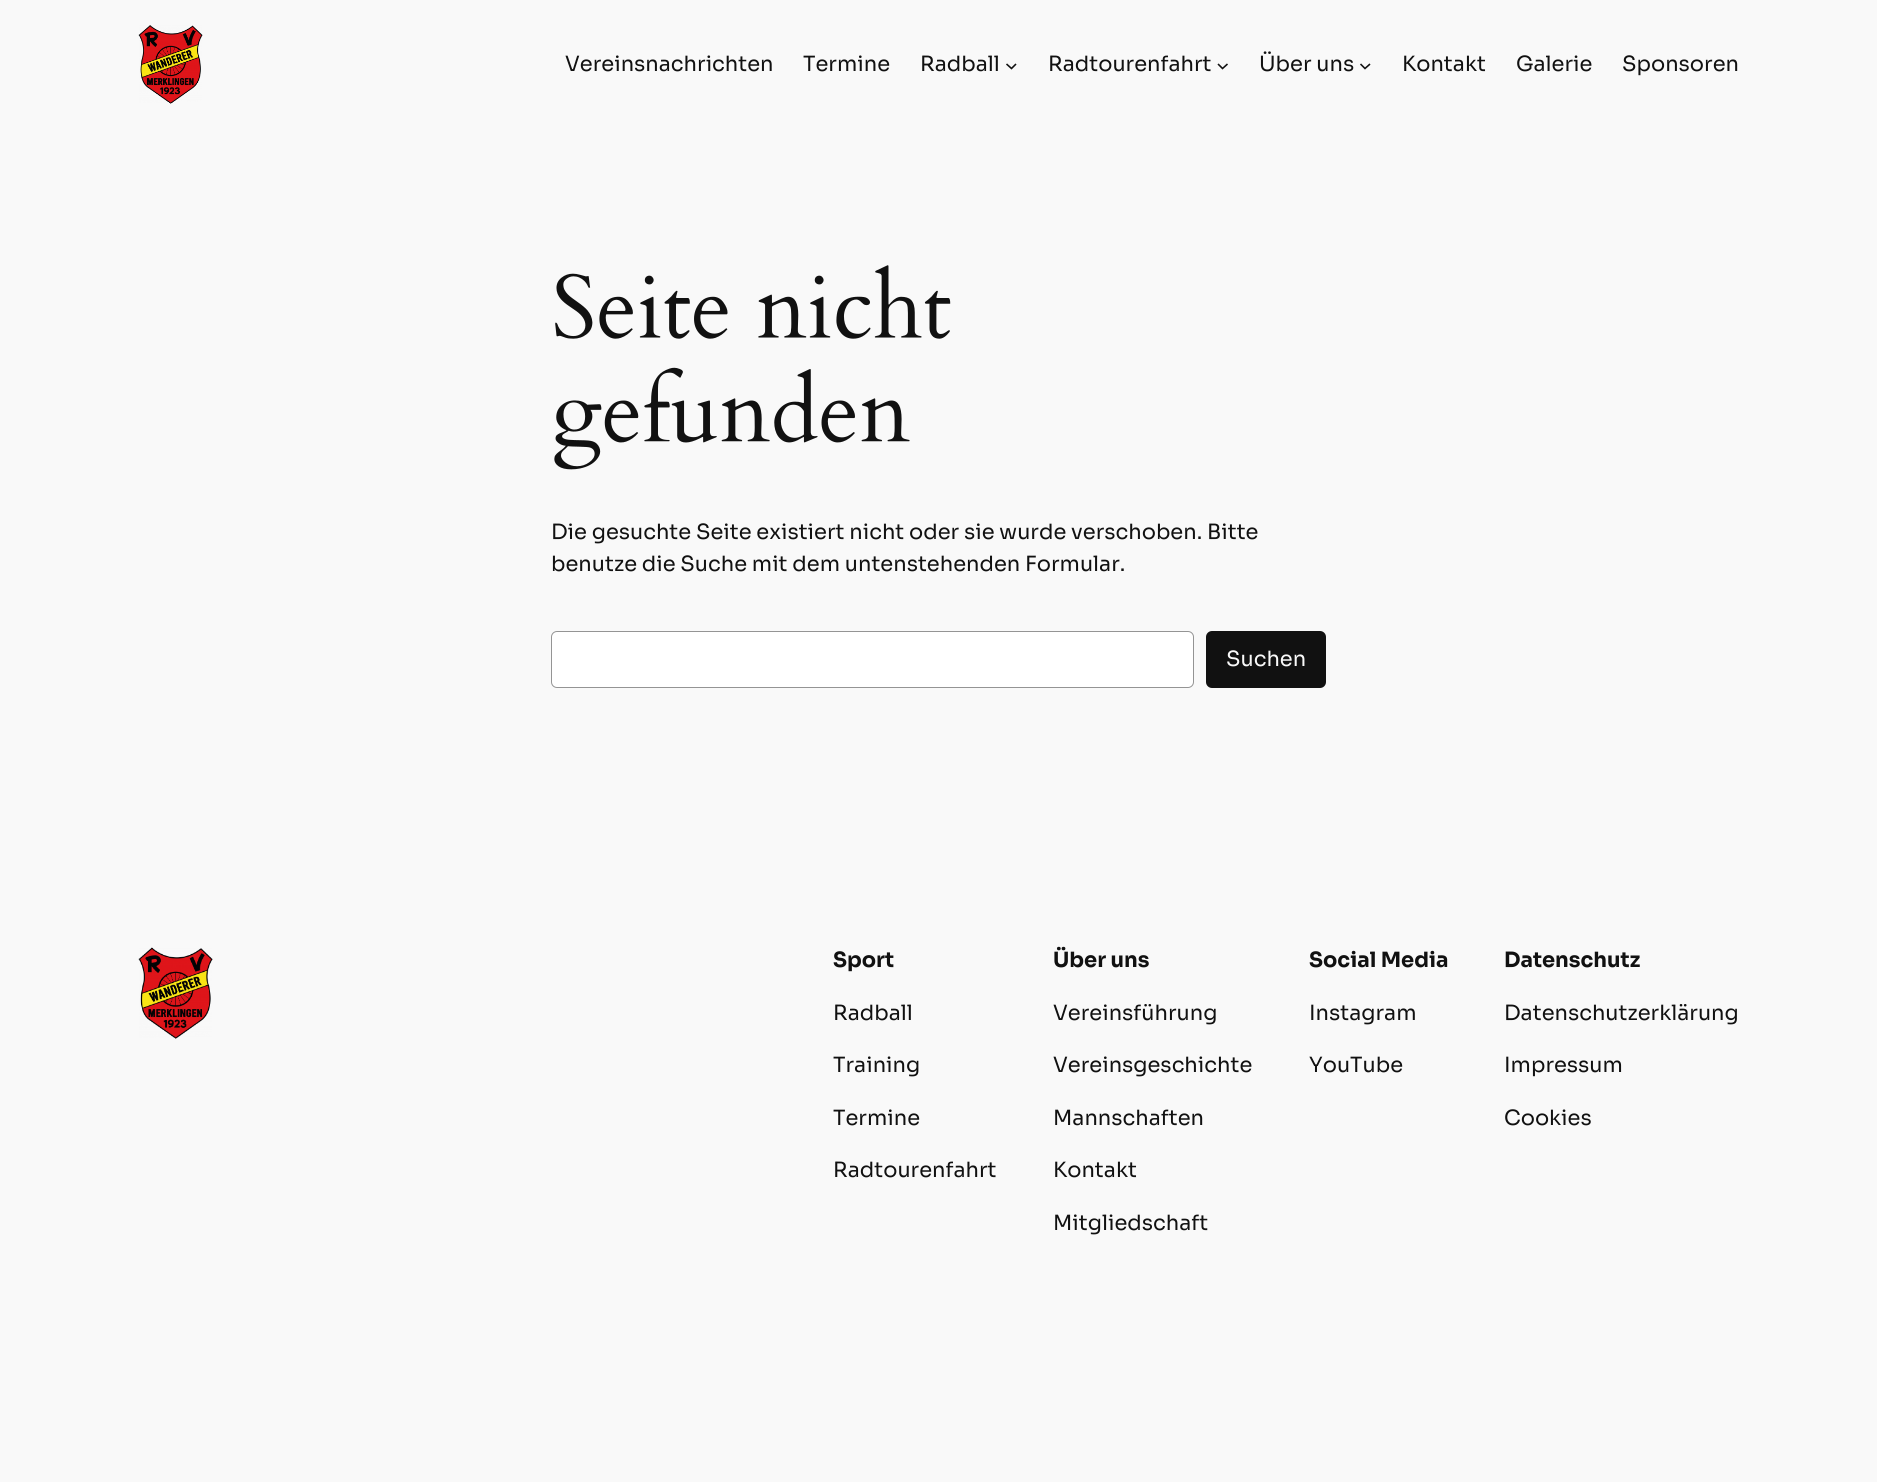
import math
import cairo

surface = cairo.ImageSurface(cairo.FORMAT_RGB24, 1877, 1482)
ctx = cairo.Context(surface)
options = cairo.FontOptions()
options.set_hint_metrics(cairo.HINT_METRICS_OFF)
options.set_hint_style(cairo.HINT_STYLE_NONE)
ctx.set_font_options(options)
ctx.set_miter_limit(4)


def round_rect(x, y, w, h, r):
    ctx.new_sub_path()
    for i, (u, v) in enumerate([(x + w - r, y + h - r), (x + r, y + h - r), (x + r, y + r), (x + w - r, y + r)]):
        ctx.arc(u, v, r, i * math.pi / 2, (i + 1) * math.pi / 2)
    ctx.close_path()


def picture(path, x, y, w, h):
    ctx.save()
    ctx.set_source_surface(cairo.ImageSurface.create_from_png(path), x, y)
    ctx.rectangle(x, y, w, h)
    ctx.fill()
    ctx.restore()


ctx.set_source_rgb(0.976, 0.976, 0.976)
ctx.paint()
picture("img1.png", 138, 25, 65, 79)
ctx.select_font_face("Sora")
ctx.set_font_size(21)
ctx.set_source_rgb(0.067, 0.067, 0.067)
ctx.move_to(565, 71)
ctx.show_text("Vereinsnachrichten")
ctx.move_to(803, 71)
ctx.show_text("Termine")
ctx.move_to(920, 71)
ctx.show_text("Radball")
ctx.new_path()
ctx.move_to(1006.5, 64)
ctx.line_to(1011.5, 68.5)
ctx.line_to(1016, 64)
ctx.set_line_width(1.6)
ctx.stroke()
ctx.move_to(1048, 71)
ctx.show_text("Radtourenfahrt")
ctx.new_path()
ctx.move_to(1218, 64)
ctx.line_to(1222.5, 68.5)
ctx.line_to(1227.5, 64)
ctx.stroke()
ctx.move_to(1259, 71)
ctx.show_text("Über uns")
ctx.new_path()
ctx.move_to(1360.5, 64)
ctx.line_to(1365, 68.5)
ctx.line_to(1370, 64)
ctx.stroke()
ctx.move_to(1402, 71)
ctx.show_text("Kontakt")
ctx.move_to(1516, 71)
ctx.show_text("Galerie")
ctx.move_to(1622, 71)
ctx.show_text("Sponsoren")
picture("img2.png", 555, 265, 396, 74)
picture("img3.png", 554, 367, 356, 103)
ctx.move_to(551, 539)
ctx.show_text("Die gesuchte Seite existiert nicht oder sie wurde verschoben. Bitte")
ctx.move_to(551, 571)
ctx.show_text("benutze die Suche mit dem untenstehenden Formular.")
ctx.set_source_rgb(1, 1, 1)
round_rect(551.5, 631.5, 642, 56, 5.5)
ctx.fill_preserve()
ctx.set_source_rgb(0.58, 0.58, 0.58)
ctx.set_line_width(1)
ctx.stroke()
ctx.set_source_rgb(0.067, 0.067, 0.067)
round_rect(1206, 631, 120, 57, 6)
ctx.fill()
ctx.set_source_rgb(0.976, 0.976, 0.976)
ctx.move_to(1226, 666)
ctx.show_text("Suchen")
picture("img4.png", 138, 947, 75, 92)
ctx.select_font_face("Sora", cairo.FONT_SLANT_NORMAL, cairo.FONT_WEIGHT_BOLD)
ctx.set_source_rgb(0.067, 0.067, 0.067)
ctx.move_to(833, 967)
ctx.show_text("Sport")
ctx.select_font_face("Sora")
ctx.move_to(833, 1020)
ctx.show_text("Radball")
ctx.move_to(833, 1072)
ctx.show_text("Training")
ctx.move_to(833, 1125)
ctx.show_text("Termine")
ctx.move_to(833, 1177)
ctx.show_text("Radtourenfahrt")
ctx.select_font_face("Sora", cairo.FONT_SLANT_NORMAL, cairo.FONT_WEIGHT_BOLD)
ctx.move_to(1053, 967)
ctx.show_text("Über uns")
ctx.select_font_face("Sora")
ctx.move_to(1053, 1020)
ctx.show_text("Vereinsführung")
ctx.move_to(1053, 1072)
ctx.show_text("Vereinsgeschichte")
ctx.move_to(1053, 1125)
ctx.show_text("Mannschaften")
ctx.move_to(1053, 1177)
ctx.show_text("Kontakt")
ctx.move_to(1053, 1230)
ctx.show_text("Mitgliedschaft")
ctx.select_font_face("Sora", cairo.FONT_SLANT_NORMAL, cairo.FONT_WEIGHT_BOLD)
ctx.move_to(1309, 967)
ctx.show_text("Social Media")
ctx.select_font_face("Sora")
ctx.move_to(1309, 1020)
ctx.show_text("Instagram")
ctx.move_to(1309, 1072)
ctx.show_text("YouTube")
ctx.select_font_face("Sora", cairo.FONT_SLANT_NORMAL, cairo.FONT_WEIGHT_BOLD)
ctx.move_to(1504, 967)
ctx.show_text("Datenschutz")
ctx.select_font_face("Sora")
ctx.move_to(1504, 1020)
ctx.show_text("Datenschutzerklärung")
ctx.move_to(1504, 1072)
ctx.show_text("Impressum")
ctx.move_to(1504, 1125)
ctx.show_text("Cookies")
surface.write_to_png("page.png")
